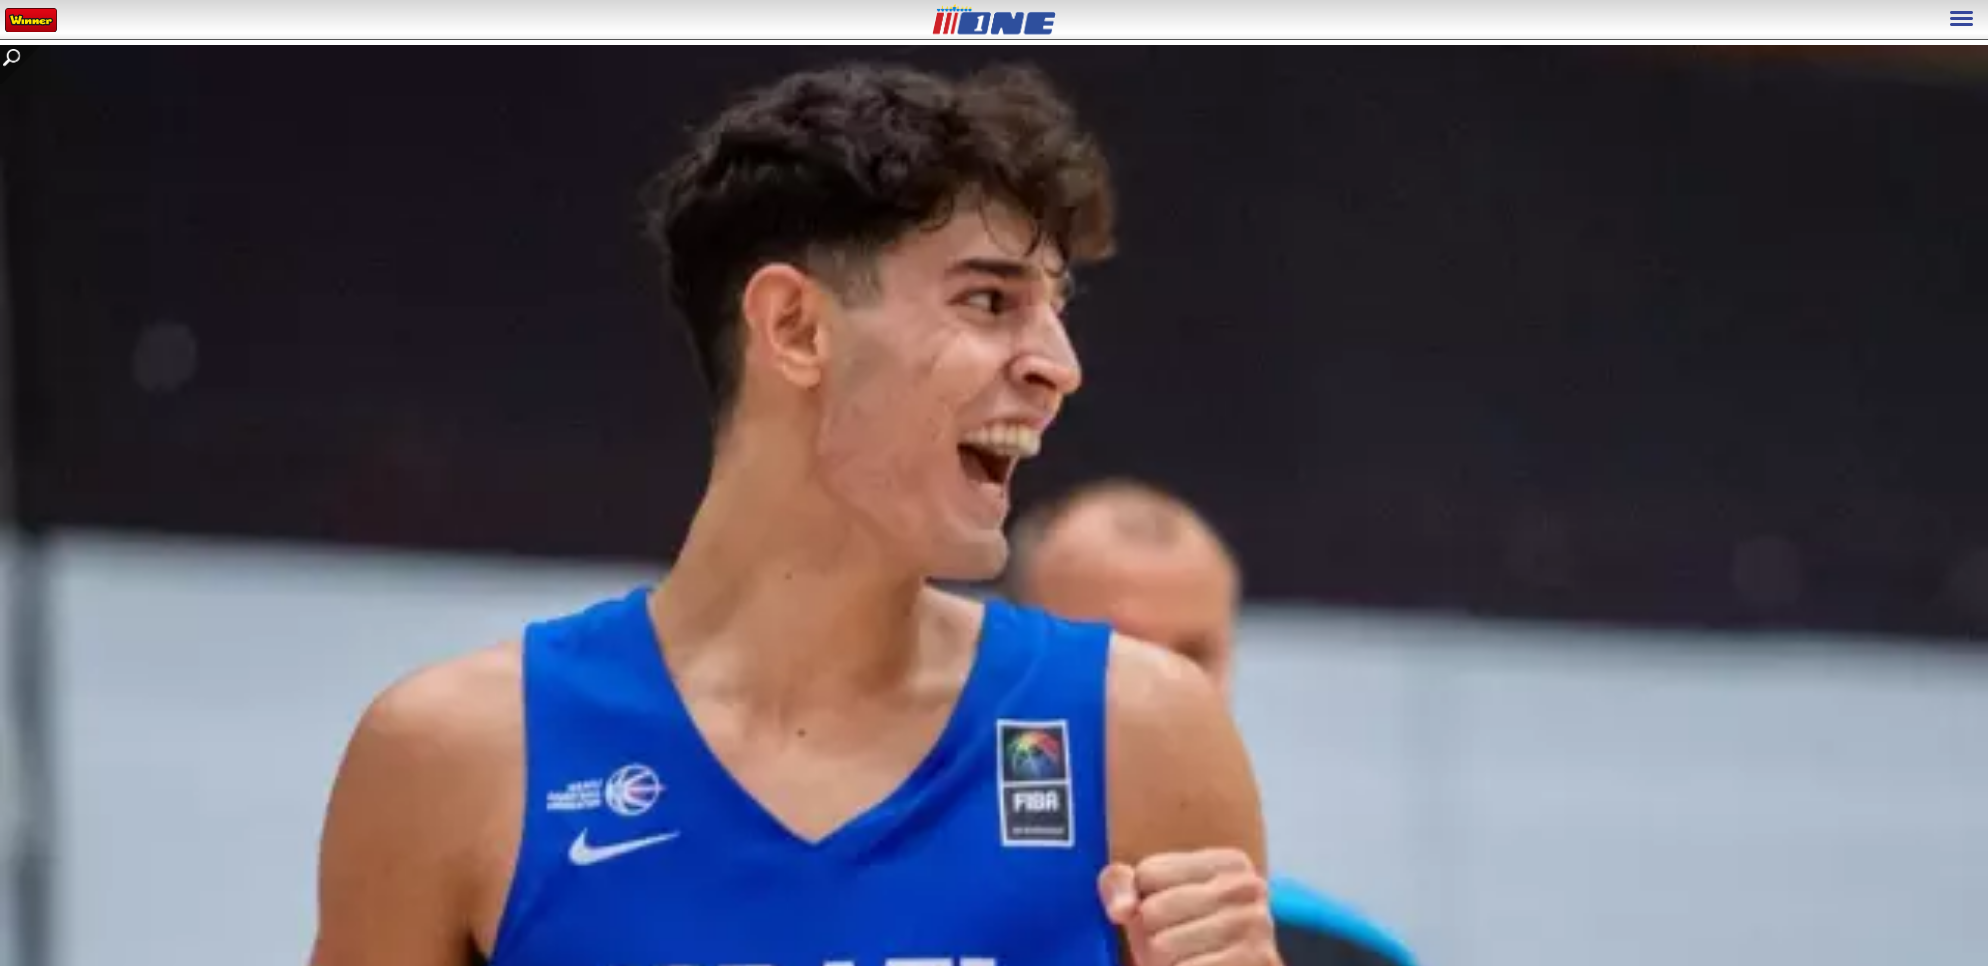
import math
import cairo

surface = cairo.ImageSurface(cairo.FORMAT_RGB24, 1988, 966)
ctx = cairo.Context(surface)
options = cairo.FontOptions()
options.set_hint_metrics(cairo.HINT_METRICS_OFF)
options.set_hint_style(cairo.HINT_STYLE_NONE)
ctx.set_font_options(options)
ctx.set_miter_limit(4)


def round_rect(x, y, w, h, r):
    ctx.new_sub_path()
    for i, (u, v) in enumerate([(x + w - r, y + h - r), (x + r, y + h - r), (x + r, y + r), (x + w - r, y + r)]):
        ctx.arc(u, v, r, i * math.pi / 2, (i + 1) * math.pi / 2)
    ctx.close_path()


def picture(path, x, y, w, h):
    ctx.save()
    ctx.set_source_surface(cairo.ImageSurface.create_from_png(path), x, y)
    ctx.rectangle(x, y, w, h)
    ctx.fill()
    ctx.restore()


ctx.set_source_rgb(1, 1, 1)
ctx.paint()
gradient = cairo.LinearGradient(994, 0, 994, 39)
gradient.add_color_stop_rgba(0, 0.839, 0.839, 0.839, 1)
gradient.add_color_stop_rgba(0.85, 1, 1, 1, 1)
gradient.add_color_stop_rgba(1, 0.933, 0.933, 0.933, 1)
ctx.set_source(gradient)
ctx.rectangle(0, 0, 1988, 39)
ctx.fill()
ctx.set_source_rgb(0.337, 0.337, 0.337)
ctx.rectangle(0, 39, 1988, 1)
ctx.fill()
picture("img1.png", 5, 8, 52, 24)
picture("img2.png", 932, 4, 124, 31)
ctx.set_source_rgb(0.208, 0.278, 0.608)
round_rect(1950, 11, 23, 3, 1.5)
ctx.fill()
round_rect(1950, 17, 23, 3, 1.5)
ctx.fill()
round_rect(1950, 23, 23, 3, 1.5)
ctx.fill()
picture("img3.png", 0, 45, 1988, 921)
picture("img4.png", 0, 45, 40, 39)
surface.write_to_png("page.png")
